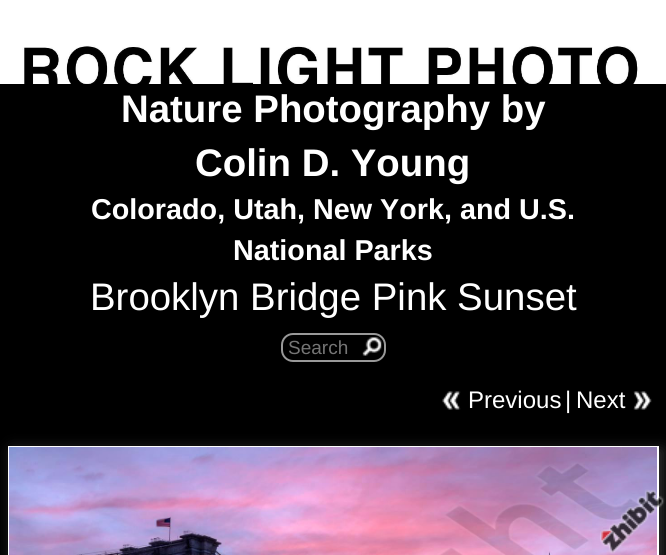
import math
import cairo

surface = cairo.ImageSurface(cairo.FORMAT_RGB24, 666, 555)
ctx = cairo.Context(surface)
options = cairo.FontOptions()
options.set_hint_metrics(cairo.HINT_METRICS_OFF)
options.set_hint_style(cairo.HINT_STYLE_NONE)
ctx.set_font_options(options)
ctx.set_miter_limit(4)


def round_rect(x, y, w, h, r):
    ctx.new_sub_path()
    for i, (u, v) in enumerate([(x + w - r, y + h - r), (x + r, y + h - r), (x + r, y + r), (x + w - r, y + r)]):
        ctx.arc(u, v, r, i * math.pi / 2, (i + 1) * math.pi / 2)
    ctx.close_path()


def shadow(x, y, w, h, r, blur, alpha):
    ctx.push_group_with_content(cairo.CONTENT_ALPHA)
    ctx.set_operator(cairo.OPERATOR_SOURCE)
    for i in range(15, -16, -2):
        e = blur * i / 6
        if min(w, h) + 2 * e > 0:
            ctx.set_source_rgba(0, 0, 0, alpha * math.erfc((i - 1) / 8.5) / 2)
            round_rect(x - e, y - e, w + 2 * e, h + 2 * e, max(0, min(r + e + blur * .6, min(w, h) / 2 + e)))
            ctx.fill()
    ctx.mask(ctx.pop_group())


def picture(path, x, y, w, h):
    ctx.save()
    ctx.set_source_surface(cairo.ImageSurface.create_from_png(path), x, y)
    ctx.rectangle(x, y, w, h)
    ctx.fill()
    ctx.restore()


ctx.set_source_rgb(0, 0, 0)
ctx.paint()
picture("img1.png", 0, 0, 666, 84)
ctx.select_font_face("Liberation Sans", cairo.FONT_SLANT_NORMAL, cairo.FONT_WEIGHT_BOLD)
ctx.set_font_size(38.4)
ctx.set_source_rgb(1, 1, 1)
ctx.move_to(121, 122)
ctx.show_text("Nature Photography by")
ctx.move_to(195, 176)
ctx.show_text("Colin D. Young")
ctx.set_font_size(28.75)
ctx.move_to(91, 219)
ctx.show_text("Colorado, Utah, New York, and U.S.")
ctx.move_to(233, 260)
ctx.show_text("National Parks")
ctx.select_font_face("Liberation Sans")
ctx.set_font_size(38.4)
ctx.move_to(90, 310)
ctx.show_text("Brooklyn Bridge Pink Sunset")
picture("img2.png", 362, 337, 20, 19)
round_rect(282, 334, 103, 27, 11)
ctx.set_source_rgb(0.6, 0.6, 0.6)
ctx.stroke()
ctx.set_font_size(19)
ctx.set_source_rgb(0.459, 0.459, 0.459)
ctx.move_to(288, 354)
ctx.show_text("Search")
picture("img3.png", 442, 391, 19, 19)
ctx.set_font_size(24)
ctx.set_source_rgb(1, 1, 1)
ctx.move_to(468, 408)
ctx.show_text("Previous")
ctx.move_to(565, 408)
ctx.show_text("|")
ctx.move_to(576, 408)
ctx.show_text("Next")
picture("img4.png", 633, 391, 19, 19)
ctx.set_source_rgb(0.2, 0.2, 0.2)
shadow(12, 450, 651, 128, 0, 7.5, 1)
ctx.rectangle(9, 447, 649, 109)
ctx.set_source_rgb(1, 1, 1)
ctx.stroke()
picture("img5.png", 9, 447, 648, 108)
picture("img6.png", 600, 489, 65, 65)
surface.write_to_png("page.png")
